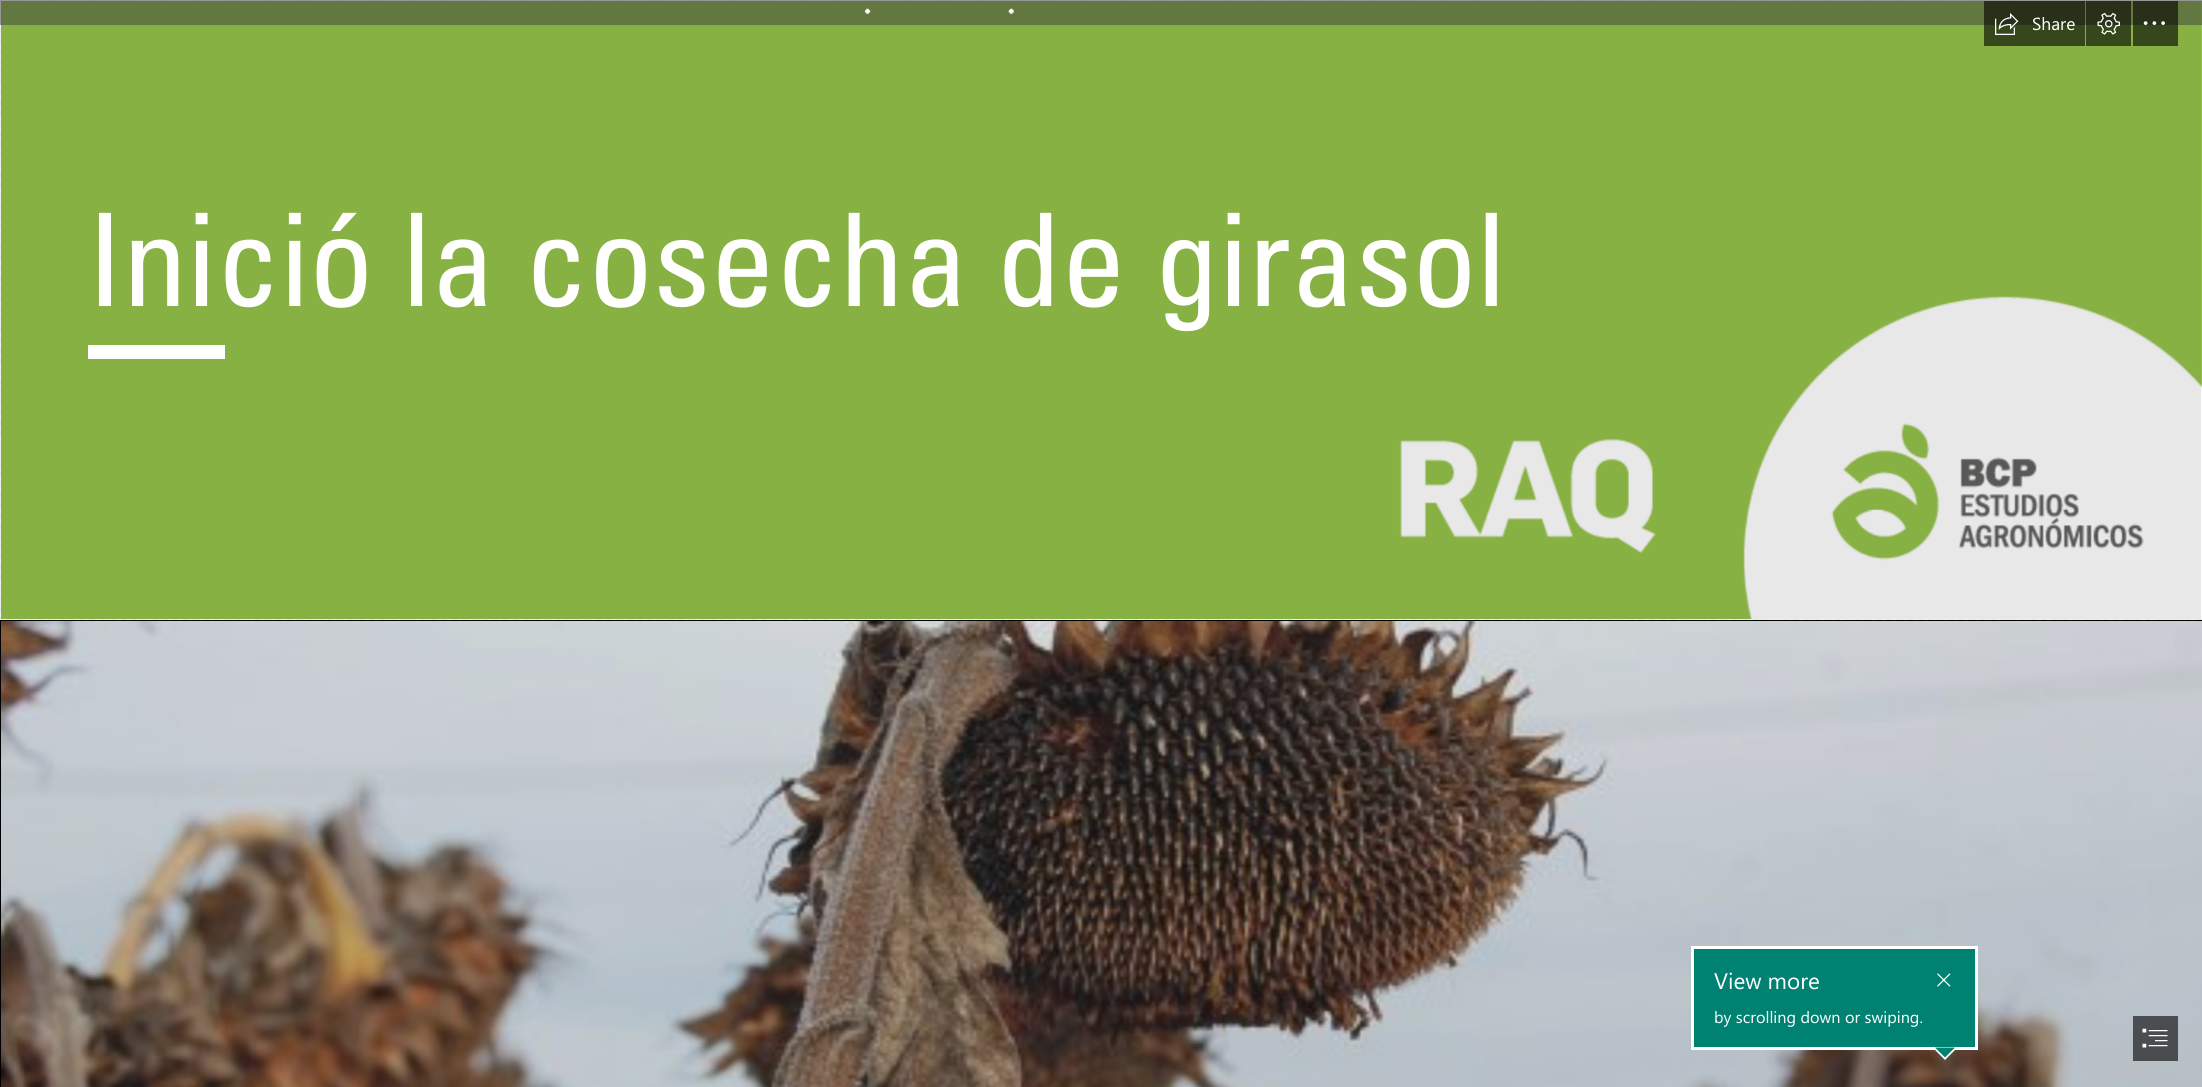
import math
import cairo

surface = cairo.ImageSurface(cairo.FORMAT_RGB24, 2202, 1087)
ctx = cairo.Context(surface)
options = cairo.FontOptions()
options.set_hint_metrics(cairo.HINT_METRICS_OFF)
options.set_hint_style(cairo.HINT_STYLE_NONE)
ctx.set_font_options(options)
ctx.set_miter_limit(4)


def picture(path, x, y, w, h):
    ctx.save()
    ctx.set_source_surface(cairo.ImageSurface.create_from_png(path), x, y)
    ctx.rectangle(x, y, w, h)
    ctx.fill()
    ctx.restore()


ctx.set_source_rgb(0.918, 0.918, 0.918)
ctx.paint()
picture("img5.png", 0, 0, 2202, 620)
picture("img6.png", 1, 1, 2201, 618)
ctx.set_source_rgba(0.251, 0.251, 0.251, 0.5)
ctx.rectangle(0, 0, 2202, 25)
ctx.fill()
ctx.set_source_rgba(0, 0, 0, 0.6)
ctx.rectangle(1984, 1, 101, 45)
ctx.fill()
picture("img1.png", 1995, 13, 24, 22)
ctx.select_font_face("Segoe UI")
ctx.set_font_size(17.5)
ctx.set_source_rgb(1, 1, 1)
ctx.move_to(2032, 30)
ctx.show_text("Share")
ctx.set_source_rgba(0, 0, 0, 0.6)
ctx.rectangle(2086, 1, 45, 45)
ctx.fill()
picture("img2.png", 2097, 12, 23, 23)
ctx.rectangle(2133, 1, 45, 45)
ctx.fill()
picture("img3.png", 2143, 21, 22, 4)
picture("img4.png", 864, 8, 150, 6)
ctx.select_font_face("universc")
ctx.set_font_size(129)
ctx.set_source_rgb(1, 1, 1)
ctx.move_to(87, 306)
ctx.show_text("Inició la cosecha de girasol")
ctx.rectangle(88, 345, 137, 14)
ctx.fill()
ctx.set_source_rgb(0, 0, 0)
ctx.rectangle(0, 620, 2202, 467)
ctx.fill()
picture("img7.png", 1, 621, 2201, 466)
ctx.set_source_rgb(0, 0.51, 0.447)
ctx.rectangle(1692.5, 947.5, 284, 101)
ctx.fill_preserve()
ctx.set_source_rgb(1, 1, 1)
ctx.set_line_width(3)
ctx.stroke()
ctx.select_font_face("Segoe UI")
ctx.set_font_size(22.5)
ctx.move_to(1714, 989)
ctx.show_text("View more")
ctx.set_font_size(16.25)
ctx.move_to(1714, 1023)
ctx.show_text("by scrolling down or swiping.")
picture("img8.png", 1937, 973, 14, 14)
ctx.new_path()
ctx.move_to(1932.5, 1047.5)
ctx.line_to(1957.5, 1047.5)
ctx.line_to(1945, 1060)
ctx.close_path()
ctx.fill()
ctx.set_source_rgb(0, 0.51, 0.447)
ctx.new_path()
ctx.move_to(1935, 1047.5)
ctx.line_to(1955, 1047.5)
ctx.line_to(1945, 1057.5)
ctx.close_path()
ctx.fill()
ctx.set_source_rgba(0, 0, 0, 0.6)
ctx.rectangle(2133, 1016, 45, 45)
ctx.fill()
picture("img9.png", 2142, 1028, 26, 20)
surface.write_to_png("page.png")
